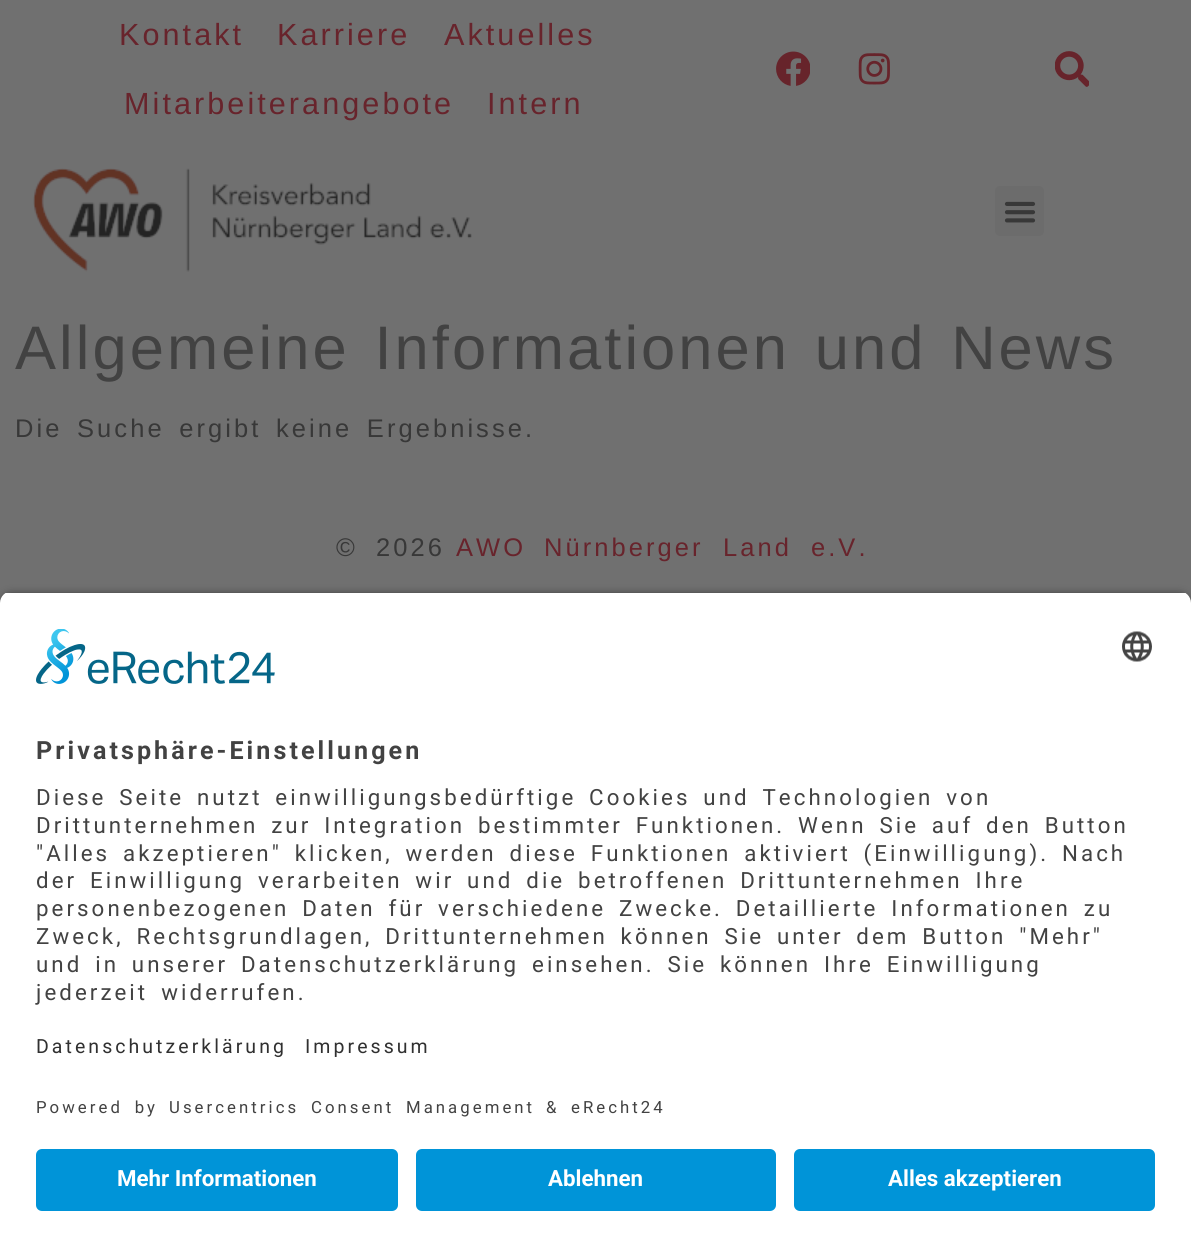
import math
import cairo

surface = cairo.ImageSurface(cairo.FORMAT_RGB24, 1191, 1246)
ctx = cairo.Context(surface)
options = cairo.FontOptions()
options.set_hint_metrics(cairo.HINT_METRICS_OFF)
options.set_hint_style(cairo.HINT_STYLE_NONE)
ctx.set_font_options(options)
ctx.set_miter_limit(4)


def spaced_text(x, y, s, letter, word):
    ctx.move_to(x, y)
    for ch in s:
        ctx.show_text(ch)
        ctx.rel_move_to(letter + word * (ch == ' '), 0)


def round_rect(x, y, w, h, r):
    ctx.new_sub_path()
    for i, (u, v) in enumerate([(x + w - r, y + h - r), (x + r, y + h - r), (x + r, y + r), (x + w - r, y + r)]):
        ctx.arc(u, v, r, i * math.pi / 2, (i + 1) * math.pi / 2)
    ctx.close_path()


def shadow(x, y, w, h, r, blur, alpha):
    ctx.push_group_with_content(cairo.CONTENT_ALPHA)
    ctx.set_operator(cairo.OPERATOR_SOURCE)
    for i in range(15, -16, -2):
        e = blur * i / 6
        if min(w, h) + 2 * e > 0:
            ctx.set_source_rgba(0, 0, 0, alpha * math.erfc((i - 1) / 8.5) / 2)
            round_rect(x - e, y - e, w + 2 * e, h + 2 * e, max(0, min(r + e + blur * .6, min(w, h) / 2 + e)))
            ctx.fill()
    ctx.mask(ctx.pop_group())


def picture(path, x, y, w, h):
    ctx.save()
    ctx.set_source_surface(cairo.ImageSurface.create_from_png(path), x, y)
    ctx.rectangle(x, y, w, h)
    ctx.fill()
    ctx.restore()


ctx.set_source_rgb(0.439, 0.439, 0.439)
ctx.paint()
ctx.select_font_face("Liberation Sans")
ctx.set_font_size(30.6)
ctx.set_source_rgb(0.408, 0.141, 0.173)
spaced_text(119, 45, "Kontakt", 3.05, 0)
spaced_text(277, 45, "Karriere", 3.05, 0)
spaced_text(444, 45, "Aktuelles", 3.05, 0)
spaced_text(124, 114, "Mitarbeiterangebote", 3.05, 0)
spaced_text(487, 114, "Intern", 3.05, 0)
picture("img1.png", 776, 51, 34, 35)
picture("img2.png", 858, 53, 32, 32)
picture("img3.png", 1055, 51, 34, 36)
picture("img4.png", 33, 168, 439, 104)
ctx.set_source_rgb(0.424, 0.424, 0.424)
round_rect(995, 186, 49, 50, 5)
ctx.fill()
picture("img5.png", 1004, 201, 32, 22)
ctx.set_font_size(61.5)
ctx.set_source_rgb(0.259, 0.259, 0.259)
spaced_text(15, 369, "Allgemeine Informationen und News", 3.05, 4.5)
ctx.set_font_size(25.5)
ctx.set_source_rgb(0.22, 0.22, 0.22)
spaced_text(15, 437, "Die Suche ergibt keine Ergebnisse.", 3.05, 4.5)
spaced_text(336, 556, "©", 3.05, 0)
spaced_text(376, 556, "2026", 3.05, 0)
ctx.set_source_rgb(0.408, 0.141, 0.173)
spaced_text(456, 556, "AWO", 3.05, 0)
spaced_text(544, 556, "Nürnberger", 3.05, 0)
spaced_text(723, 556, "Land", 3.05, 0)
spaced_text(811, 556, "e.V.", 3.05, 0)
ctx.set_source_rgb(0, 0, 0)
shadow(0, 596, 1191, 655, 12, 5, 0.8)
ctx.save()
ctx.new_path()
ctx.move_to(12, 591)
ctx.line_to(1179, 591)
ctx.curve_to(1185.5, 591, 1191, 596.5, 1191, 603)
ctx.line_to(1191, 1013)
ctx.line_to(0, 1013)
ctx.line_to(0, 603)
ctx.curve_to(0, 596.5, 5.5, 591, 12, 591)
ctx.close_path()
ctx.clip()
ctx.set_source_rgb(1, 1, 1)
ctx.rectangle(0, 593, 1191, 420)
ctx.fill()
ctx.restore()
picture("img6.png", 36, 629, 239, 55)
picture("img7.png", 1122, 631, 30, 31)
ctx.select_font_face("Roboto", cairo.FONT_SLANT_NORMAL, cairo.FONT_WEIGHT_BOLD)
ctx.set_font_size(25.1)
ctx.set_source_rgb(0.259, 0.259, 0.259)
spaced_text(36, 759, "Privatsphäre-Einstellungen", 3.05, 0)
ctx.select_font_face("Roboto")
ctx.set_font_size(22.3)
spaced_text(36, 805, "Diese Seite nutzt einwilligungsbedürftige Cookies und Technologien von", 3.05, 4.25)
spaced_text(36, 833, "Drittunternehmen zur Integration bestimmter Funktionen. Wenn Sie auf den Button", 3.05, 4.25)
spaced_text(36, 861, "\"Alles akzeptieren\" klicken, werden diese Funktionen aktiviert (Einwilligung). Nach", 3.05, 4.25)
spaced_text(36, 888, "der Einwilligung verarbeiten wir und die betroffenen Drittunternehmen Ihre", 3.05, 4.25)
spaced_text(36, 916, "personenbezogenen Daten für verschiedene Zwecke. Detaillierte Informationen zu", 3.05, 4.25)
spaced_text(36, 944, "Zweck, Rechtsgrundlagen, Drittunternehmen können Sie unter dem Button \"Mehr\"", 3.05, 4.25)
spaced_text(36, 972, "und in unserer Datenschutzerklärung einsehen. Sie können Ihre Einwilligung", 3.05, 4.25)
spaced_text(36, 1000, "jederzeit widerrufen.", 3.05, 4.5)
ctx.set_source_rgb(1, 1, 1)
ctx.rectangle(0, 1013, 1191, 233)
ctx.fill()
ctx.set_font_size(19.5)
ctx.set_source_rgb(0.188, 0.188, 0.188)
spaced_text(36, 1053, "Datenschutzerklärung", 3.05, 0)
spaced_text(305, 1053, "Impressum", 3.05, 0)
ctx.set_font_size(16.75)
ctx.set_source_rgb(0.259, 0.259, 0.259)
spaced_text(36, 1113, "Powered by", 3.05, 4.5)
spaced_text(169, 1113, "Usercentrics Consent Management", 3.05, 4.5)
spaced_text(546, 1113, "&", 3.05, 0)
spaced_text(571, 1113, "eRecht24", 3.05, 0)
ctx.set_source_rgb(0, 0.58, 0.847)
round_rect(36, 1149, 362, 62, 6)
ctx.fill()
ctx.select_font_face("Roboto", cairo.FONT_SLANT_NORMAL, cairo.FONT_WEIGHT_BOLD)
ctx.set_font_size(22.3)
ctx.set_source_rgb(1, 1, 1)
ctx.move_to(117, 1186)
ctx.show_text("Mehr Informationen")
ctx.set_source_rgb(0, 0.58, 0.847)
round_rect(416, 1149, 360, 62, 6)
ctx.fill()
ctx.set_source_rgb(1, 1, 1)
ctx.move_to(548, 1186)
ctx.show_text("Ablehnen")
ctx.set_source_rgb(0, 0.58, 0.847)
round_rect(794, 1149, 361, 62, 6)
ctx.fill()
ctx.set_source_rgb(1, 1, 1)
ctx.move_to(888, 1186)
ctx.show_text("Alles akzeptieren")
surface.write_to_png("page.png")
